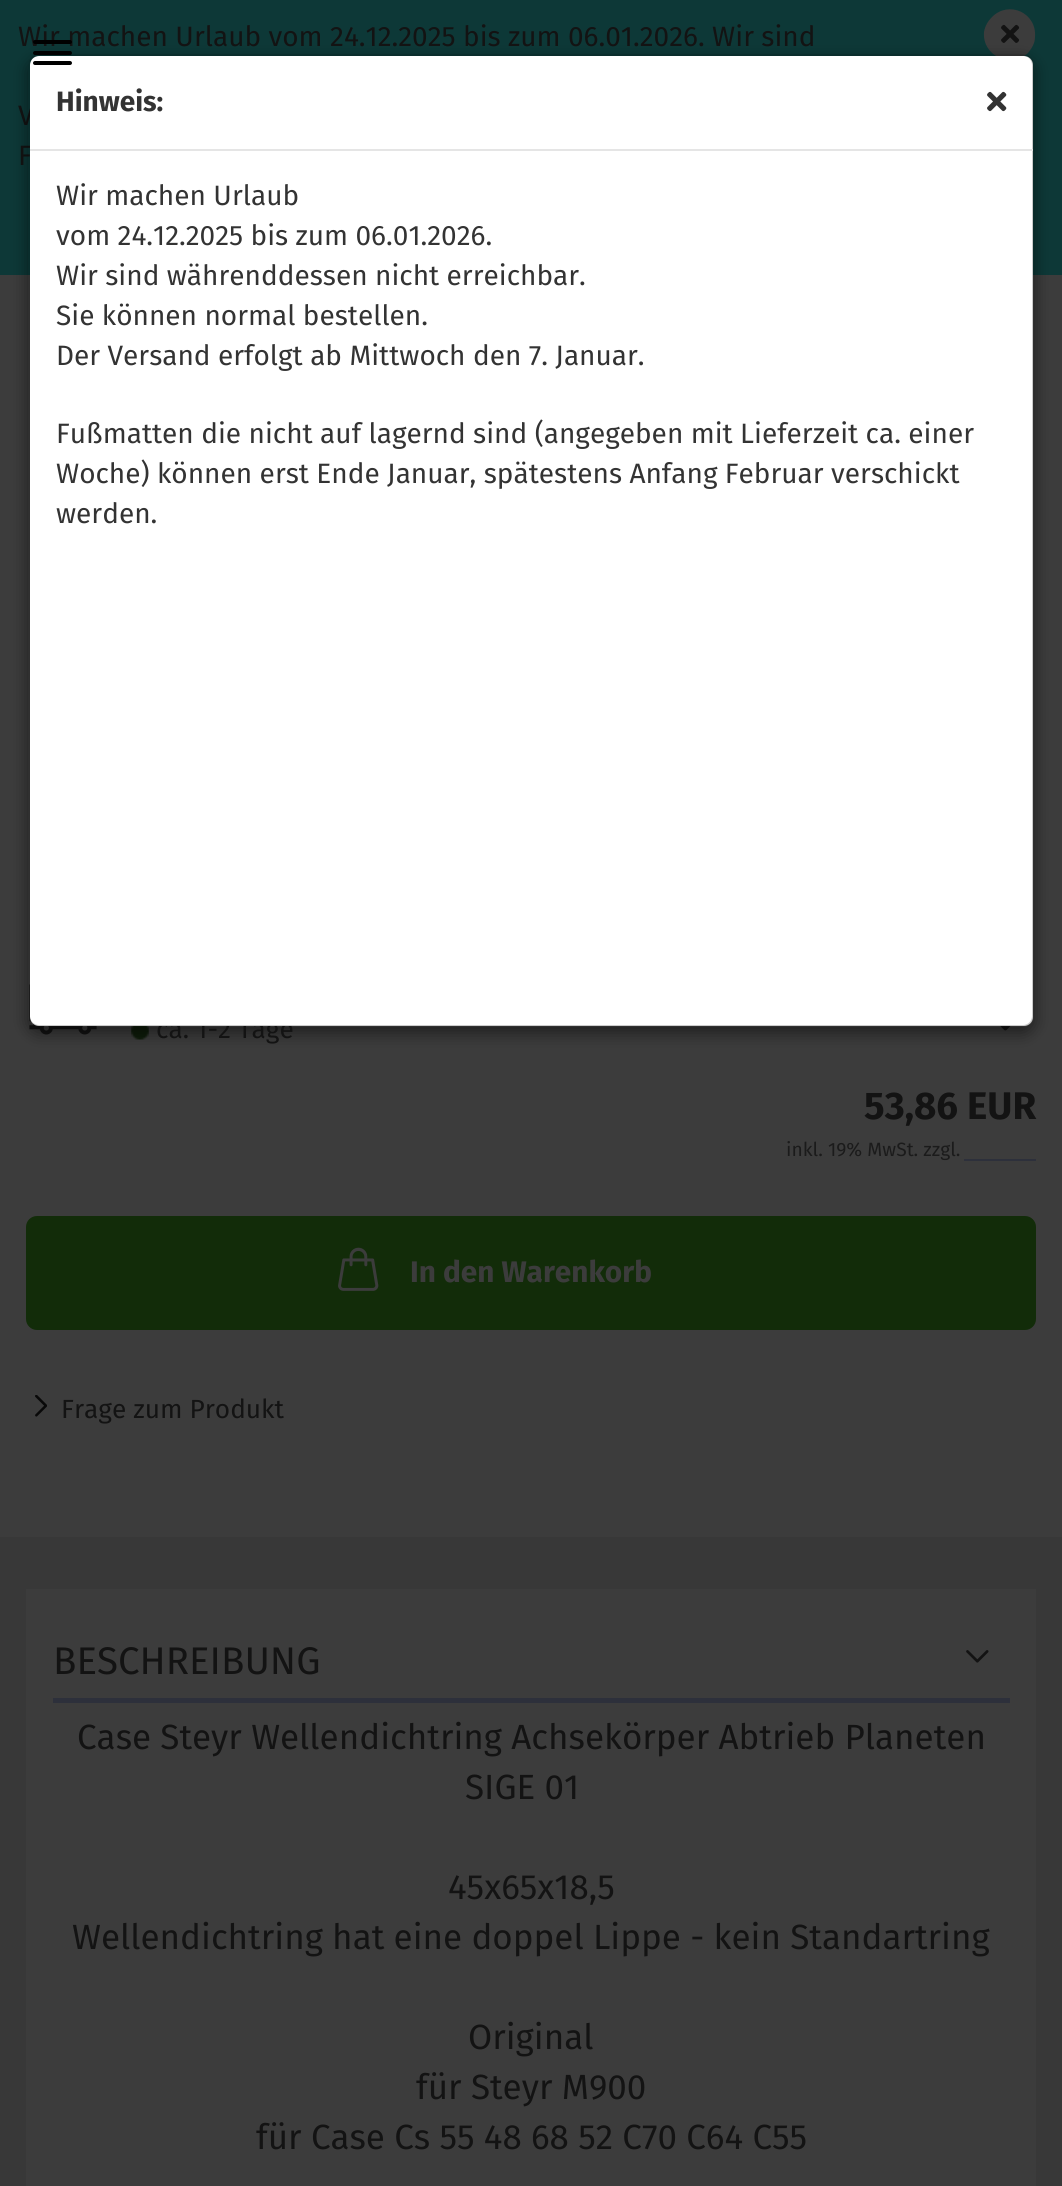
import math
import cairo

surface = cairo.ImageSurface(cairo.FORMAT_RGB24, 1062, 2186)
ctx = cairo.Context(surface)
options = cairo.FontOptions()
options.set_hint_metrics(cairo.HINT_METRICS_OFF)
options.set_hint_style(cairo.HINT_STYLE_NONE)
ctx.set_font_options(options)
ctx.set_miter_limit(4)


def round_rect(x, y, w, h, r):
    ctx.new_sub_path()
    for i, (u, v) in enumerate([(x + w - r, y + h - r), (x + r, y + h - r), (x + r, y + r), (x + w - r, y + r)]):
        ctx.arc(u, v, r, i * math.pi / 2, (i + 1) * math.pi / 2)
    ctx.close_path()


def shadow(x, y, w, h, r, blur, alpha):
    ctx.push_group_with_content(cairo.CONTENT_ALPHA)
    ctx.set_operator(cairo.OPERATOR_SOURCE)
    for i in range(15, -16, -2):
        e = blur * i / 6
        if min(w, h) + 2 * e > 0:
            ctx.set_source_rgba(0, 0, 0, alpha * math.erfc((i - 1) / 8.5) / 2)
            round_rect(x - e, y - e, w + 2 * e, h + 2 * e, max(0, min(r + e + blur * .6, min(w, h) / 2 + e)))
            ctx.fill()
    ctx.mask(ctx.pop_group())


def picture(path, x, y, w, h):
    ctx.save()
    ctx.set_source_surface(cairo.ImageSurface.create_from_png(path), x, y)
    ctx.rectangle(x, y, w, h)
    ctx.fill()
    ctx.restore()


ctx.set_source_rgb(0.235, 0.235, 0.235)
ctx.paint()
ctx.set_source_rgb(0.051, 0.22, 0.216)
ctx.rectangle(0, 0, 1062, 275)
ctx.fill()
ctx.select_font_face("Fira Sans")
ctx.set_font_size(28)
ctx.set_source_rgb(0.075, 0.075, 0.075)
ctx.move_to(18, 46)
ctx.show_text("Wir machen Urlaub vom 24.12.2025 bis zum 06.01.2026. Wir sind")
ctx.move_to(18, 125)
ctx.show_text("V")
ctx.move_to(18, 165)
ctx.show_text("F")
ctx.set_source_rgb(0.235, 0.235, 0.235)
ctx.new_path()
ctx.move_to(992, 17)
ctx.curve_to(1009, 0, 1037, 13, 1035, 37)
ctx.curve_to(1035, 43, 1032, 48, 1028, 53)
ctx.curve_to(1011, 69, 982, 56, 984, 32)
ctx.curve_to(985, 26, 988, 21, 992, 17)
ctx.close_path()
ctx.fill()
picture("img1.png", 1001, 24, 19, 19)
picture("img2.png", 29, 984, 68, 51)
picture("img3.png", 131, 1026, 18, 14)
picture("img4.png", 1000, 1026, 11, 5)
ctx.save()
ctx.set_fill_rule(cairo.FILL_RULE_EVEN_ODD)
ctx.new_path()
ctx.move_to(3, 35)
ctx.line_to(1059, 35)
ctx.line_to(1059, 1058)
ctx.line_to(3, 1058)
ctx.close_path()
ctx.move_to(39, 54)
ctx.line_to(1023, 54)
ctx.curve_to(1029, 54, 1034, 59, 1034, 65)
ctx.line_to(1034, 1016)
ctx.curve_to(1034, 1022, 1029, 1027, 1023, 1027)
ctx.line_to(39, 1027)
ctx.curve_to(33, 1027, 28, 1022, 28, 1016)
ctx.line_to(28, 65)
ctx.curve_to(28, 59, 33, 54, 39, 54)
ctx.close_path()
ctx.clip()
ctx.set_source_rgb(0, 0, 0)
shadow(28, 60, 1006, 973, 11, 8, 0.5)
ctx.restore()
ctx.set_font_size(26.25)
ctx.set_source_rgb(0.075, 0.075, 0.075)
ctx.move_to(156, 1038)
ctx.show_text("ca. 1-2 Tage")
ctx.set_source_rgb(1, 1, 1)
round_rect(30, 56, 1003, 970, 9)
ctx.fill()
round_rect(29, 55, 1004, 971, 10)
ctx.set_source_rgba(0, 0, 0, 0.2)
ctx.stroke()
ctx.set_source_rgb(0, 0, 0)
round_rect(33, 51, 39, 4, 2)
ctx.fill()
round_rect(33, 40, 39, 4, 2)
ctx.fill()
round_rect(33, 61, 39, 4, 2)
ctx.fill()
ctx.select_font_face("Fira Sans", cairo.FONT_SLANT_NORMAL, cairo.FONT_WEIGHT_BOLD)
ctx.set_font_size(38.5)
ctx.set_source_rgb(0.075, 0.075, 0.075)
ctx.move_to(864, 1119)
ctx.show_text("53,86 EUR")
ctx.select_font_face("Fira Sans")
ctx.set_font_size(19.25)
ctx.set_source_rgb(0.106, 0.106, 0.106)
ctx.move_to(786, 1156)
ctx.show_text("inkl. 19% MwSt. zzgl.")
ctx.set_source_rgb(0.176, 0.188, 0.231)
ctx.rectangle(964, 1159, 72, 2)
ctx.fill()
ctx.set_source_rgb(0.071, 0.173, 0.039)
round_rect(27, 1217, 1008, 112, 10)
ctx.fill_preserve()
ctx.stroke()
picture("img5.png", 338, 1247, 41, 44)
ctx.select_font_face("Fira Sans", cairo.FONT_SLANT_NORMAL, cairo.FONT_WEIGHT_BOLD)
ctx.set_font_size(29.75)
ctx.set_source_rgb(0.235, 0.235, 0.235)
ctx.move_to(410, 1282)
ctx.show_text("In den Warenkorb")
picture("img6.png", 35, 1395, 12, 22)
ctx.select_font_face("Fira Sans")
ctx.set_font_size(26.25)
ctx.set_source_rgb(0.075, 0.075, 0.075)
ctx.move_to(61, 1418)
ctx.show_text("Frage zum Produkt")
ctx.set_source_rgb(0.22, 0.22, 0.22)
ctx.rectangle(0, 1537, 1062, 649)
ctx.fill()
ctx.set_source_rgb(0.235, 0.235, 0.235)
ctx.rectangle(26, 1589, 1010, 597)
ctx.fill()
ctx.set_source_rgb(0.176, 0.188, 0.231)
ctx.rectangle(53, 1698, 957, 5)
ctx.fill()
ctx.set_font_size(38.5)
ctx.set_source_rgb(0.075, 0.075, 0.075)
ctx.move_to(53, 1674)
ctx.show_text("BESCHREIBUNG")
picture("img7.png", 966, 1650, 23, 13)
ctx.set_font_size(35)
ctx.move_to(77, 1749)
ctx.show_text("Case Steyr Wellendichtring Achsekörper Abtrieb Planeten")
ctx.move_to(465, 1799)
ctx.show_text("SIGE 01")
ctx.move_to(448, 1899)
ctx.show_text("45x65x18,5")
ctx.move_to(72, 1949)
ctx.show_text("Wellendichtring hat eine doppel Lippe - kein Standartring")
ctx.move_to(468, 2049)
ctx.show_text("Original")
ctx.move_to(416, 2099)
ctx.show_text("für Steyr M900")
ctx.move_to(256, 2149)
ctx.show_text("für Case Cs 55 48 68 52 C70 C64 C55")
ctx.set_source_rgb(0.898, 0.898, 0.898)
ctx.rectangle(30, 149, 1003, 2)
ctx.fill()
ctx.select_font_face("Fira Sans", cairo.FONT_SLANT_NORMAL, cairo.FONT_WEIGHT_BOLD)
ctx.set_font_size(28)
ctx.set_source_rgb(0.2, 0.2, 0.2)
ctx.move_to(56, 111)
ctx.show_text("Hinweis:")
picture("img8.png", 987, 91, 20, 21)
ctx.select_font_face("Fira Sans")
ctx.move_to(56, 205)
ctx.show_text("Wir machen Urlaub")
ctx.move_to(56, 245)
ctx.show_text("vom 24.12.2025 bis zum 06.01.2026.")
ctx.move_to(56, 285)
ctx.show_text("Wir sind währenddessen nicht erreichbar.")
ctx.move_to(56, 325)
ctx.show_text("Sie können normal bestellen.")
ctx.move_to(56, 365)
ctx.show_text("Der Versand erfolgt ab Mittwoch den 7. Januar.")
ctx.move_to(56, 443)
ctx.show_text("Fußmatten die nicht auf lagernd sind (angegeben mit Lieferzeit ca. einer")
ctx.move_to(56, 483)
ctx.show_text("Woche) können erst Ende Januar, spätestens Anfang Februar verschickt")
ctx.move_to(56, 523)
ctx.show_text("werden.")
surface.write_to_png("page.png")
